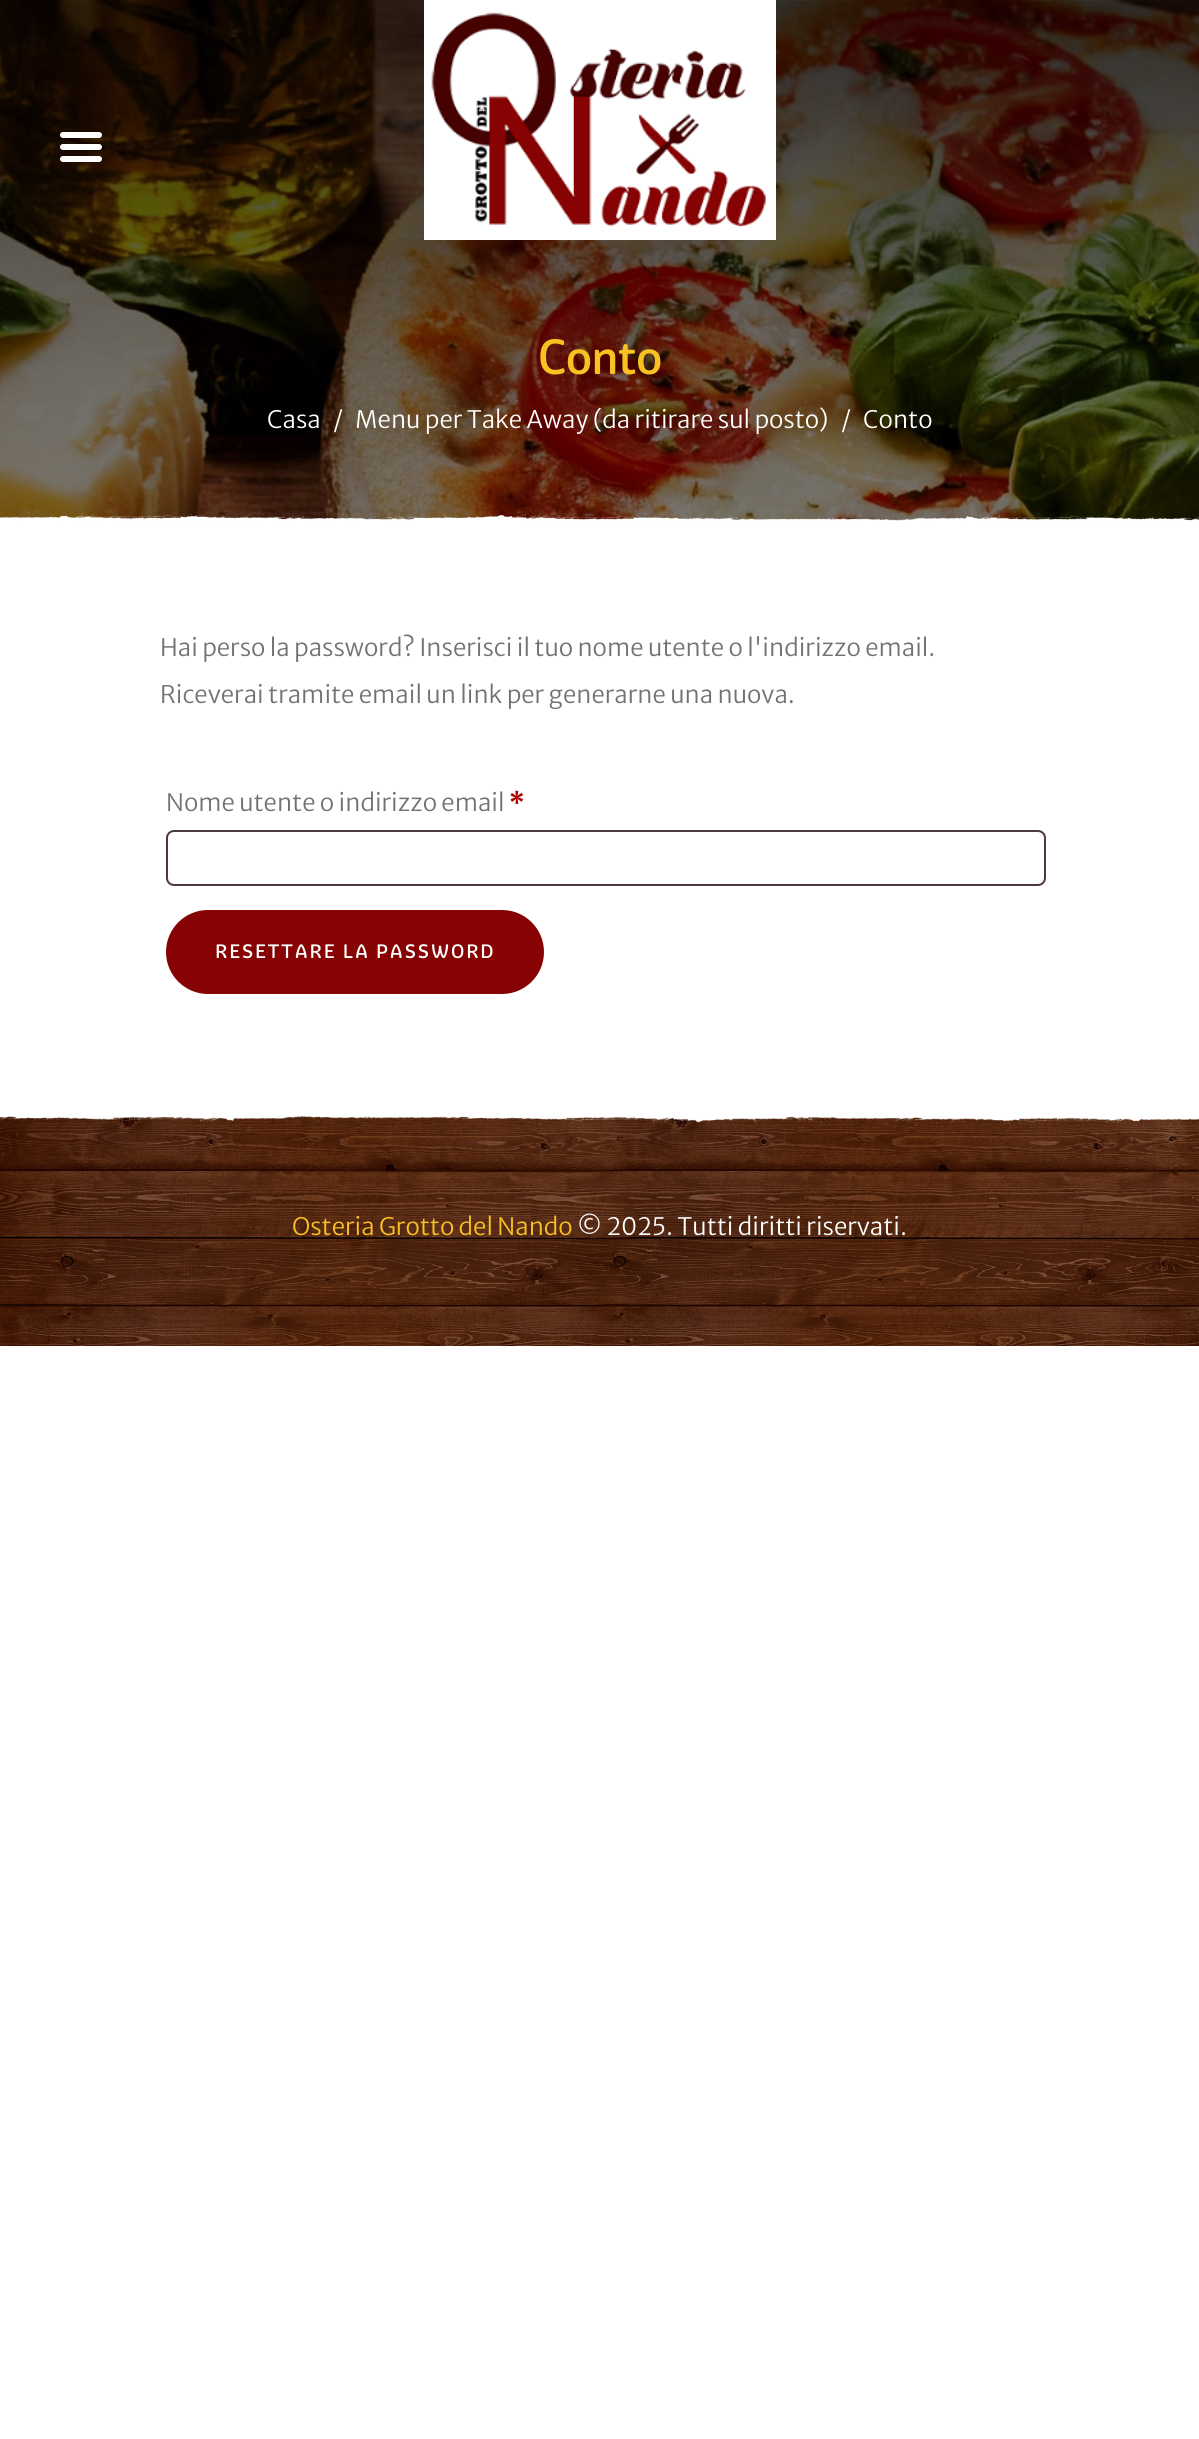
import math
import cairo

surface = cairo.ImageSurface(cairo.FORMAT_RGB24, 1199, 2439)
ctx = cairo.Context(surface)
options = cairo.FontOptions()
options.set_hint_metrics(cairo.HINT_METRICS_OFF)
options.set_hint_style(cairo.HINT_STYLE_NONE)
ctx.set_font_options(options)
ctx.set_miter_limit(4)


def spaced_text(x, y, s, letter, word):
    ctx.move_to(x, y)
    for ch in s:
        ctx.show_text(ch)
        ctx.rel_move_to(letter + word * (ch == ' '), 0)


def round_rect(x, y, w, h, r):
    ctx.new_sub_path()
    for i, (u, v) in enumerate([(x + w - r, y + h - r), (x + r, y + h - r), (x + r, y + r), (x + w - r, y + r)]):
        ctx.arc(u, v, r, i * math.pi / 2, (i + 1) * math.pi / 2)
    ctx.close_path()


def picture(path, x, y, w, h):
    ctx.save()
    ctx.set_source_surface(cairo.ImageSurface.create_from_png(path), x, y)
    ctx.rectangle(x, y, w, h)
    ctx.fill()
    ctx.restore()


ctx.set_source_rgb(1, 1, 1)
ctx.paint()
picture("img3.png", 0, 0, 1199, 523)
picture("img1.png", 60, 132, 42, 30)
picture("img2.png", 424, 0, 352, 240)
ctx.select_font_face("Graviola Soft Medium")
ctx.set_font_size(48)
ctx.set_source_rgb(0.98, 0.757, 0.133)
spaced_text(538, 374, "Conto", -1, 0)
ctx.select_font_face("Merriweather Sans Light")
ctx.set_font_size(24)
ctx.set_source_rgb(1, 1, 1)
ctx.move_to(267, 428)
ctx.show_text("Casa")
ctx.move_to(333, 428)
ctx.show_text("/")
ctx.move_to(355, 428)
ctx.show_text("Menu per Take Away (da ritirare sul posto)")
ctx.move_to(841, 428)
ctx.show_text("/")
ctx.move_to(863, 428)
ctx.show_text("Conto")
picture("img4.png", 0, 510, 1199, 18)
ctx.set_source_rgb(0.443, 0.447, 0.447)
ctx.move_to(160, 656)
ctx.show_text("Hai perso la password? Inserisci il tuo nome utente o l'indirizzo email.")
ctx.move_to(160, 703)
ctx.show_text("Riceverai tramite email un link per generarne una nuova.")
ctx.move_to(166, 811)
ctx.show_text("Nome utente o indirizzo email")
ctx.select_font_face("Merriweather Sans", cairo.FONT_SLANT_NORMAL, cairo.FONT_WEIGHT_BOLD)
ctx.set_source_rgb(0.667, 0, 0)
ctx.move_to(509, 811)
ctx.show_text("*")
round_rect(167, 831, 878, 54, 7)
ctx.set_source_rgb(0.302, 0.224, 0.224)
ctx.stroke()
ctx.set_source_rgb(0.529, 0.012, 0.012)
round_rect(168, 912, 374, 80, 40)
ctx.fill_preserve()
ctx.set_line_width(4)
ctx.stroke()
ctx.select_font_face("Graviola Soft Medium")
ctx.set_font_size(18.9)
ctx.set_source_rgb(1, 1, 1)
spaced_text(215, 958, "RESETTARE LA PASSWORD", 1.9, 0)
picture("img5.png", 0, 1116, 1199, 230)
ctx.select_font_face("Merriweather Sans Light")
ctx.set_font_size(24)
ctx.set_source_rgb(0.98, 0.757, 0.133)
ctx.move_to(292, 1235)
ctx.show_text("Osteria Grotto del Nando")
ctx.set_source_rgb(1, 1, 1)
ctx.move_to(577, 1235)
ctx.show_text("© 2025. Tutti diritti riservati.")
surface.write_to_png("page.png")
